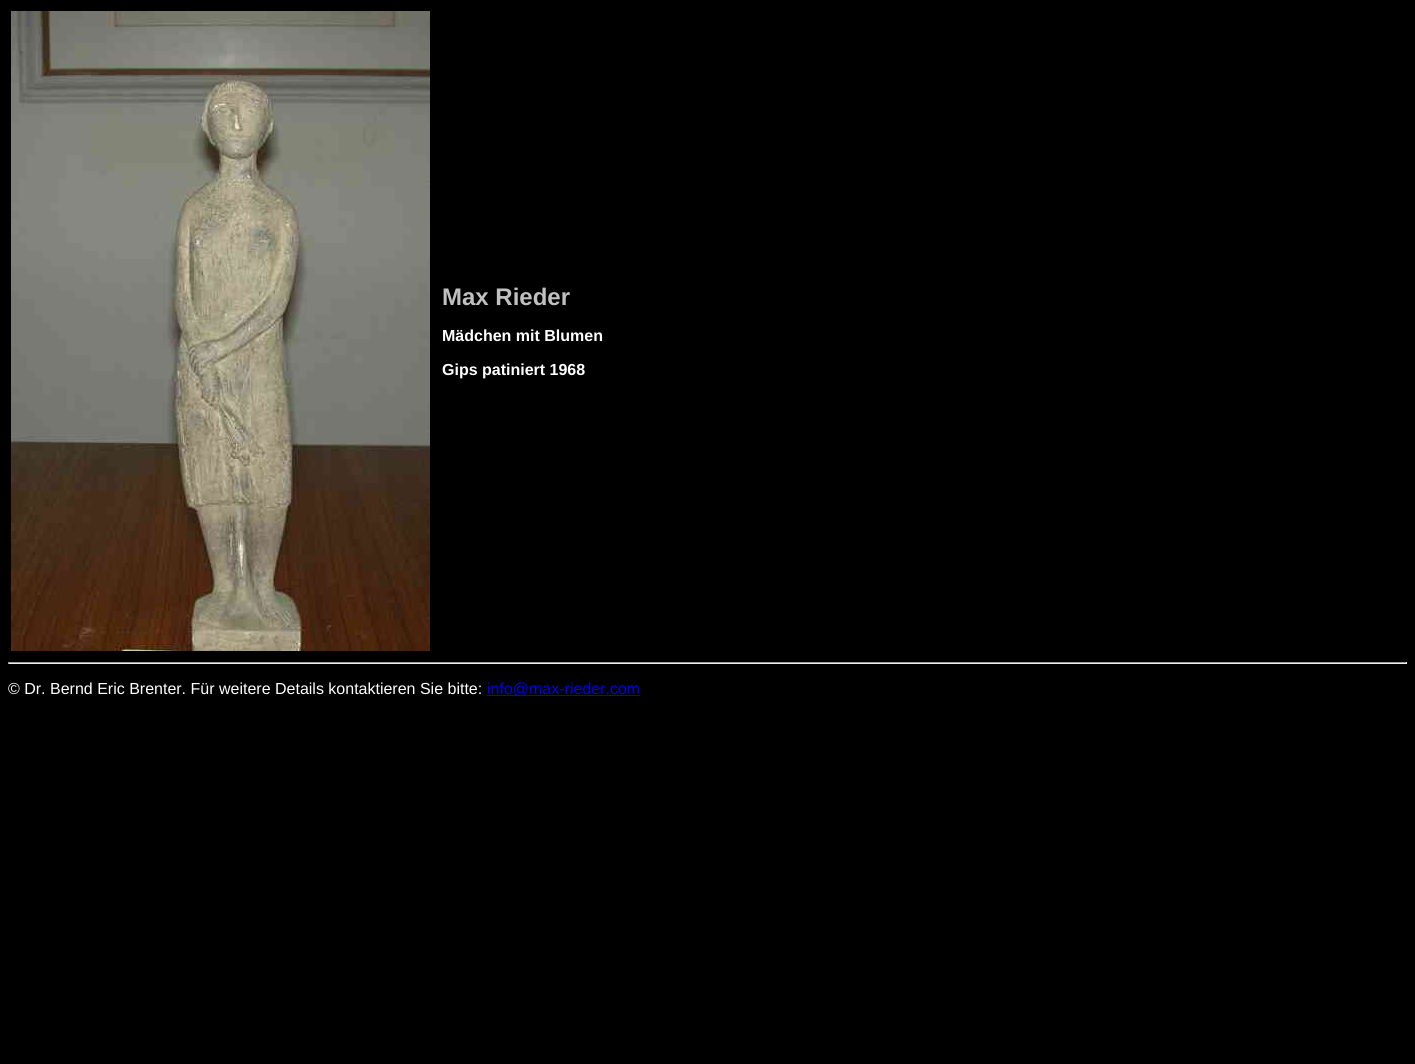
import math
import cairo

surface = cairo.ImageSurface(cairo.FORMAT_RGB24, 1415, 1064)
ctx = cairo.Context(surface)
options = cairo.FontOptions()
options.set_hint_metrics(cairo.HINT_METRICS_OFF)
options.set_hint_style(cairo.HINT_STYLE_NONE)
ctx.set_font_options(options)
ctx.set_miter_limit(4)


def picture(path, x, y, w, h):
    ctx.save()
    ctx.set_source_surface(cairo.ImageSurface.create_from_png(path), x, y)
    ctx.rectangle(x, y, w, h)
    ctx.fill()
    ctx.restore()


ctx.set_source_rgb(0, 0, 0)
ctx.paint()
picture("img1.png", 11, 11, 419, 640)
ctx.select_font_face("Liberation Sans", cairo.FONT_SLANT_NORMAL, cairo.FONT_WEIGHT_BOLD)
ctx.set_font_size(24)
ctx.set_source_rgb(0.753, 0.753, 0.753)
ctx.move_to(442, 305)
ctx.show_text("Max Rieder")
ctx.set_font_size(16)
ctx.set_source_rgb(1, 1, 1)
ctx.move_to(442, 341)
ctx.show_text("Mädchen mit Blumen")
ctx.move_to(442, 375)
ctx.show_text("Gips patiniert 1968")
ctx.set_source_rgb(0.624, 0.624, 0.624)
ctx.rectangle(8, 662, 1399, 1)
ctx.fill()
ctx.set_source_rgb(0.933, 0.933, 0.933)
ctx.rectangle(1406, 662, 1, 2)
ctx.fill()
ctx.rectangle(8, 663, 1399, 1)
ctx.fill()
ctx.set_source_rgb(0.624, 0.624, 0.624)
ctx.rectangle(8, 662, 1, 2)
ctx.fill()
ctx.select_font_face("Liberation Sans")
ctx.set_source_rgb(1, 1, 1)
ctx.move_to(8, 694)
ctx.show_text("© Dr. Bernd Eric Brenter. Für weitere Details kontaktieren Sie bitte:")
ctx.set_source_rgb(0, 0, 0.933)
ctx.rectangle(487, 695, 153, 1)
ctx.fill()
ctx.move_to(487, 694)
ctx.show_text("info@max-rieder.com")
surface.write_to_png("page.png")
